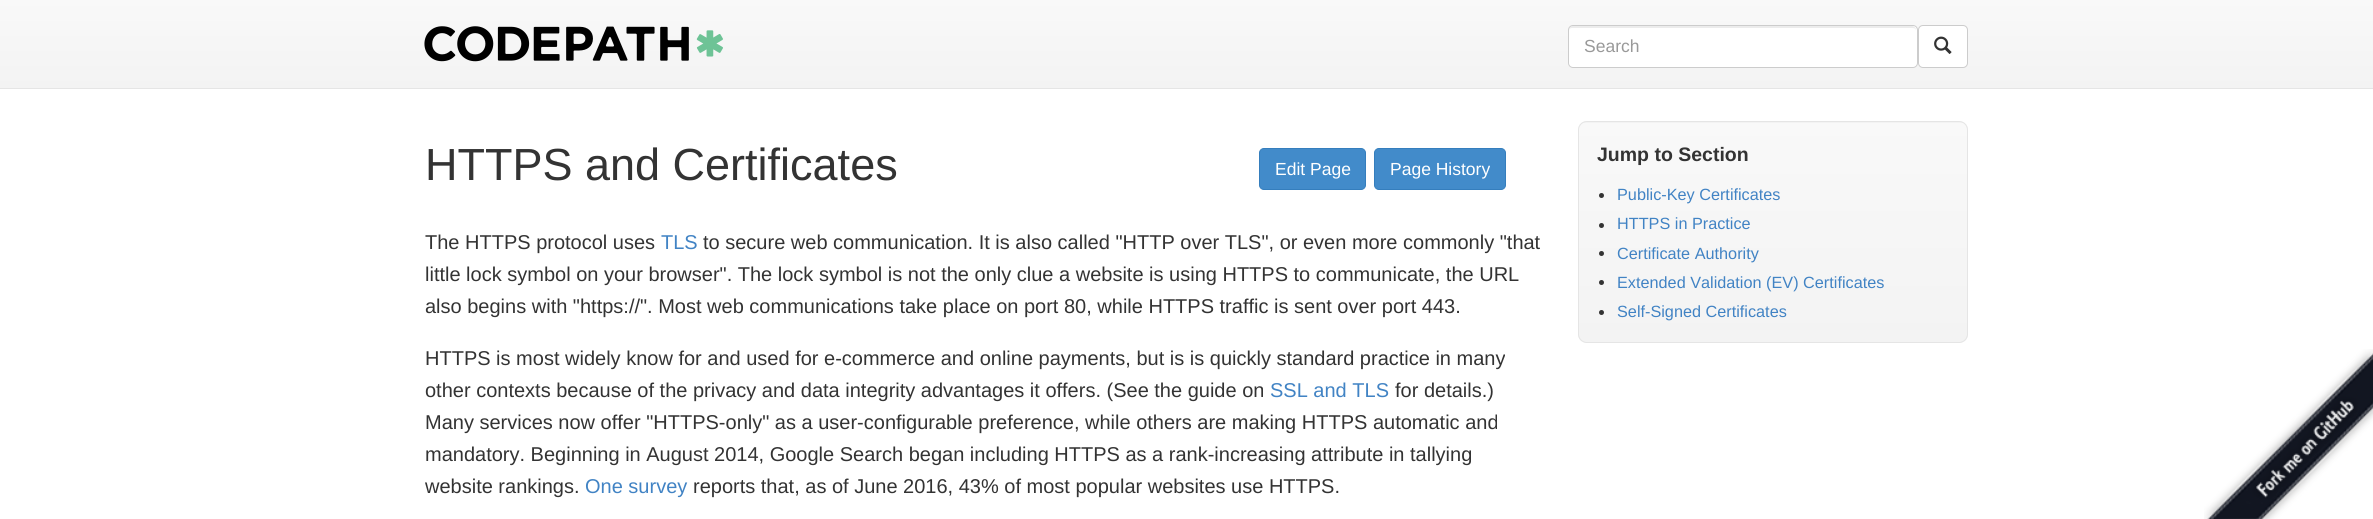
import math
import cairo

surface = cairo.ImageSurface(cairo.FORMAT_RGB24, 2373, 519)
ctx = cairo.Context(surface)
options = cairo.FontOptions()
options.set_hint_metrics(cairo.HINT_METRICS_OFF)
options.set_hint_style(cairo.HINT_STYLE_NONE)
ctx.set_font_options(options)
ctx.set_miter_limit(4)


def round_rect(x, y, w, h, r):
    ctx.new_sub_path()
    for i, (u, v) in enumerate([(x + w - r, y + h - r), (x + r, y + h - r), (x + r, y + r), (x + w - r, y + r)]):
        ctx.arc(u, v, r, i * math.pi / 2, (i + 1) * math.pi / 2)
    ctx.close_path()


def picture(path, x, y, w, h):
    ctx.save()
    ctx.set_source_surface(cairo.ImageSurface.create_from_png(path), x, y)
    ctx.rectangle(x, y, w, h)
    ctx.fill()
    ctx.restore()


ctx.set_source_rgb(1, 1, 1)
ctx.paint()
gradient = cairo.LinearGradient(1187, 0, 1187, 88)
gradient.add_color_stop_rgba(0, 0.976, 0.976, 0.976, 1)
gradient.add_color_stop_rgba(1, 0.953, 0.953, 0.953, 1)
ctx.set_source(gradient)
ctx.rectangle(0, 0, 2373, 88)
ctx.fill()
ctx.set_source_rgb(0.898, 0.898, 0.898)
ctx.rectangle(0, 88, 2373, 1)
ctx.fill()
picture("img1.png", 424, 26, 299, 36)
ctx.set_source_rgb(1, 1, 1)
round_rect(1568, 25, 350, 43, 5)
ctx.fill()
ctx.set_source_rgb(0.925, 0.925, 0.925)
ctx.new_path()
ctx.move_to(1572, 28)
ctx.line_to(1912, 28)
ctx.curve_to(1915, 28, 1916, 29, 1916, 31)
ctx.line_to(1916, 30)
ctx.curve_to(1916, 28, 1914, 26, 1912, 26)
ctx.line_to(1573, 26)
ctx.curve_to(1571, 26, 1569, 28, 1569, 30)
ctx.line_to(1569, 31)
ctx.curve_to(1569, 29, 1570, 28, 1572, 28)
ctx.close_path()
ctx.fill()
round_rect(1568.5, 25.5, 349, 42, 4.5)
ctx.set_source_rgb(0.8, 0.8, 0.8)
ctx.set_line_width(1)
ctx.stroke()
ctx.select_font_face("Liberation Sans")
ctx.set_font_size(17.5)
ctx.set_source_rgb(0.6, 0.6, 0.6)
ctx.move_to(1584, 52)
ctx.show_text("Search")
ctx.set_source_rgb(1, 1, 1)
round_rect(1918.5, 25.5, 49, 42, 4.5)
ctx.fill_preserve()
ctx.set_source_rgb(0.8, 0.8, 0.8)
ctx.stroke()
picture("img2.png", 1934, 36, 18, 18)
ctx.set_font_size(45)
ctx.set_source_rgb(0.2, 0.2, 0.2)
ctx.move_to(425, 180)
ctx.show_text("HTTPS and Certificates")
ctx.set_source_rgb(0.259, 0.545, 0.792)
round_rect(1259.5, 148.5, 106, 41, 4.5)
ctx.fill_preserve()
ctx.set_source_rgb(0.208, 0.494, 0.741)
ctx.stroke()
ctx.set_font_size(17.5)
ctx.set_source_rgb(1, 1, 1)
ctx.move_to(1275, 175)
ctx.show_text("Edit Page")
ctx.set_source_rgb(0.259, 0.545, 0.792)
round_rect(1374.5, 148.5, 131, 41, 4.5)
ctx.fill_preserve()
ctx.set_source_rgb(0.208, 0.494, 0.741)
ctx.stroke()
ctx.set_source_rgb(1, 1, 1)
ctx.move_to(1390, 175)
ctx.show_text("Page History")
ctx.set_source_rgb(0.953, 0.953, 0.953)
round_rect(1578, 121, 390, 222, 9)
ctx.fill()
ctx.save()
round_rect(1578, 121, 390, 222, 9)
ctx.clip()
gradient = cairo.LinearGradient(1773, 122, 1773, 341)
gradient.add_color_stop_rgba(0, 0.976, 0.976, 0.976, 1)
gradient.add_color_stop_rgba(1, 0.953, 0.953, 0.953, 1)
ctx.set_source(gradient)
ctx.rectangle(1578, 123, 390, 218)
ctx.fill()
ctx.restore()
round_rect(1578.5, 121.5, 389, 221, 8.5)
ctx.set_source_rgb(0.898, 0.898, 0.898)
ctx.stroke()
ctx.select_font_face("Liberation Sans", cairo.FONT_SLANT_NORMAL, cairo.FONT_WEIGHT_BOLD)
ctx.set_font_size(19.5)
ctx.set_source_rgb(0.2, 0.2, 0.2)
ctx.move_to(1597, 161)
ctx.show_text("Jump to Section")
ctx.new_path()
ctx.arc(1601.5, 195.5, 2.5, 0, 2 * math.pi)
ctx.fill()
ctx.select_font_face("Liberation Sans")
ctx.set_font_size(16.25)
ctx.set_source_rgb(0.255, 0.514, 0.769)
ctx.move_to(1617, 200)
ctx.show_text("Public-Key Certificates")
ctx.set_source_rgb(0.2, 0.2, 0.2)
ctx.new_path()
ctx.arc(1601.5, 225.5, 2.5, 0, 2 * math.pi)
ctx.fill()
ctx.set_source_rgb(0.255, 0.514, 0.769)
ctx.move_to(1617, 229)
ctx.show_text("HTTPS in Practice")
ctx.set_source_rgb(0.2, 0.2, 0.2)
ctx.new_path()
ctx.arc(1601.5, 253.5, 2.5, 0, 2 * math.pi)
ctx.fill()
ctx.set_source_rgb(0.255, 0.514, 0.769)
ctx.move_to(1617, 259)
ctx.show_text("Certificate Authority")
ctx.set_source_rgb(0.2, 0.2, 0.2)
ctx.new_path()
ctx.arc(1601.5, 282.5, 2.5, 0, 2 * math.pi)
ctx.fill()
ctx.set_source_rgb(0.255, 0.514, 0.769)
ctx.move_to(1617, 288)
ctx.show_text("Extended Validation (EV) Certificates")
ctx.set_source_rgb(0.2, 0.2, 0.2)
ctx.new_path()
ctx.arc(1601.5, 312.5, 2.5, 0, 2 * math.pi)
ctx.fill()
ctx.set_source_rgb(0.255, 0.514, 0.769)
ctx.move_to(1617, 317)
ctx.show_text("Self-Signed Certificates")
ctx.set_font_size(20)
ctx.set_source_rgb(0.2, 0.2, 0.2)
ctx.move_to(425, 249)
ctx.show_text("The HTTPS protocol uses")
ctx.set_source_rgb(0.255, 0.514, 0.769)
ctx.move_to(661, 249)
ctx.show_text("TLS")
ctx.set_source_rgb(0.2, 0.2, 0.2)
ctx.move_to(703, 249)
ctx.show_text("to secure web communication. It is also called \"HTTP over TLS\", or even more commonly \"that")
ctx.move_to(425, 281)
ctx.show_text("little lock symbol on your browser\". The lock symbol is not the only clue a website is using HTTPS to communicate, the URL")
ctx.move_to(425, 313)
ctx.show_text("also begins with \"https://\". Most web communications take place on port 80, while HTTPS traffic is sent over port 443.")
ctx.move_to(425, 365)
ctx.show_text("HTTPS is most widely know for and used for e-commerce and online payments, but is is quickly standard practice in many")
ctx.move_to(425, 397)
ctx.show_text("other contexts because of the privacy and data integrity advantages it offers. (See the guide on")
ctx.set_source_rgb(0.255, 0.514, 0.769)
ctx.move_to(1270, 397)
ctx.show_text("SSL and TLS")
ctx.set_source_rgb(0.2, 0.2, 0.2)
ctx.move_to(1395, 397)
ctx.show_text("for details.)")
ctx.move_to(425, 429)
ctx.show_text("Many services now offer \"HTTPS-only\" as a user-configurable preference, while others are making HTTPS automatic and")
ctx.move_to(425, 461)
ctx.show_text("mandatory. Beginning in August 2014, Google Search began including HTTPS as a rank-increasing attribute in tallying")
ctx.move_to(425, 493)
ctx.show_text("website rankings.")
ctx.set_source_rgb(0.255, 0.514, 0.769)
ctx.move_to(585, 493)
ctx.show_text("One survey")
ctx.set_source_rgb(0.2, 0.2, 0.2)
ctx.move_to(693, 493)
ctx.show_text("reports that, as of June 2016, 43% of most popular websites use HTTPS.")
picture("img3.png", 2204, 349, 169, 170)
surface.write_to_png("page.png")
